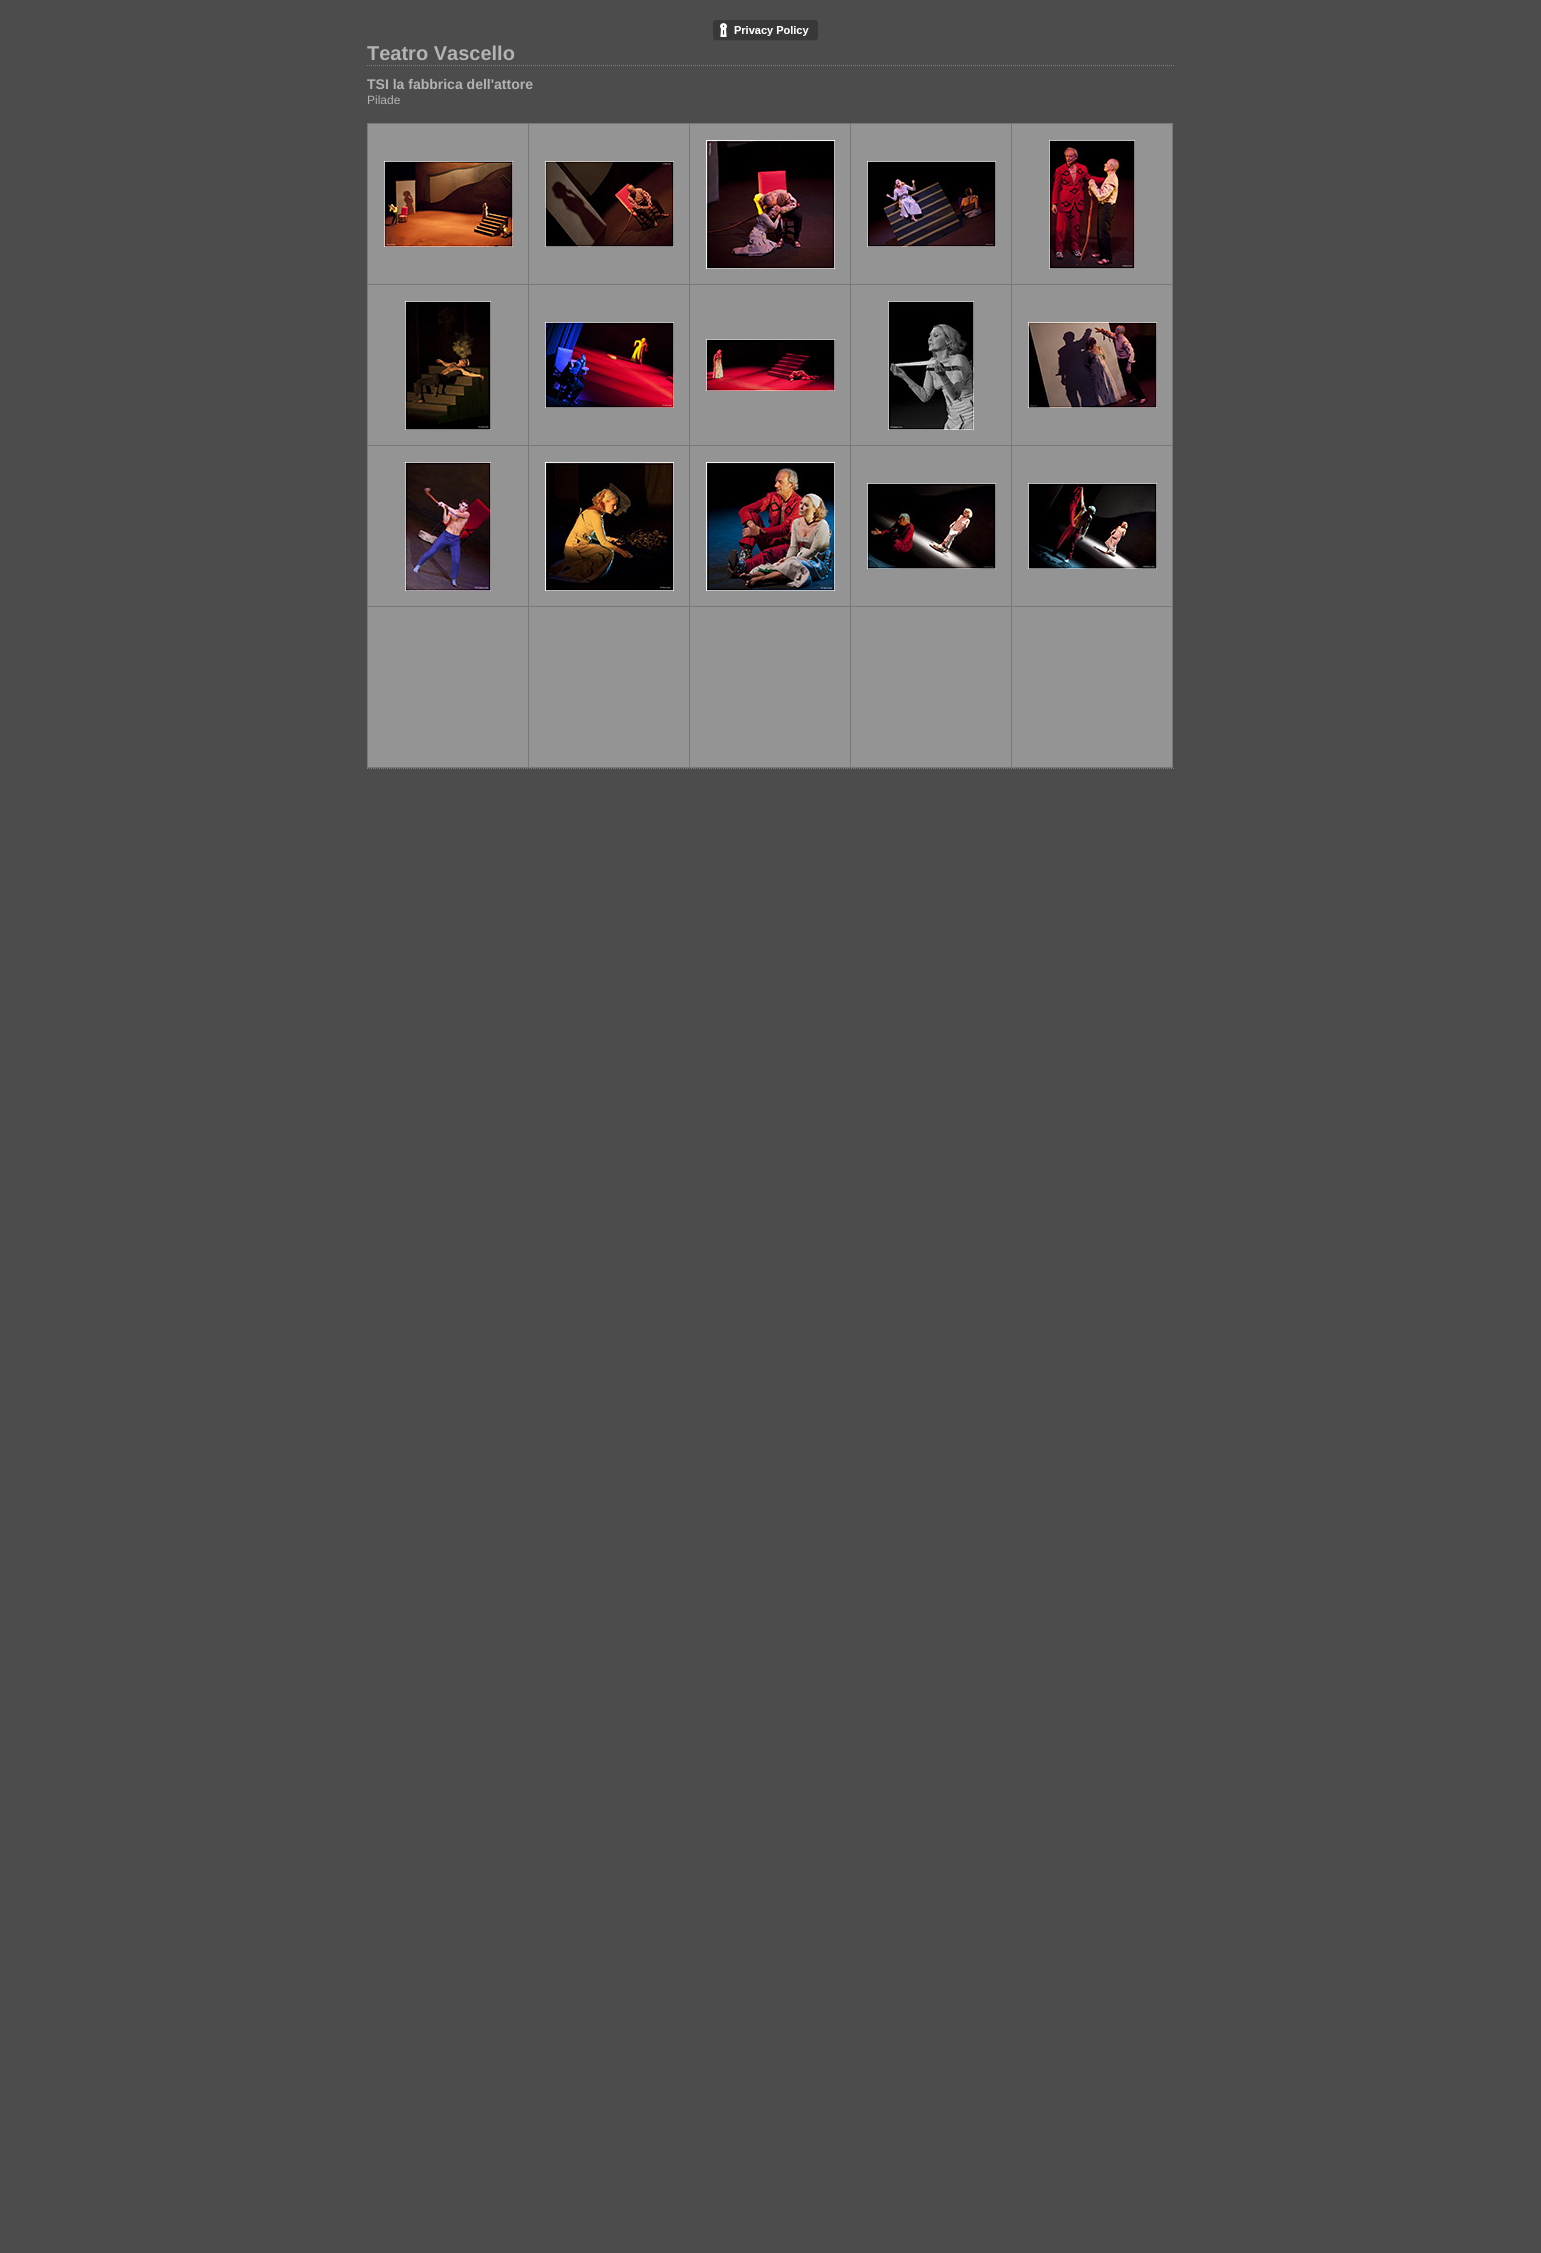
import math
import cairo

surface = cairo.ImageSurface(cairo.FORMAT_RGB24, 1541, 2253)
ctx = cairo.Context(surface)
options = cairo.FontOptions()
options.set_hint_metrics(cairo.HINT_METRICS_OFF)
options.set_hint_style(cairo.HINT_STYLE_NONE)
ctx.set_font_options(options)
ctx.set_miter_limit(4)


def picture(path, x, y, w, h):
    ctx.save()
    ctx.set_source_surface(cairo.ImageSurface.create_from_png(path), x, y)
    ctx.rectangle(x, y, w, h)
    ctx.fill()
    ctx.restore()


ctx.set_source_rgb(0.298, 0.298, 0.298)
ctx.paint()
picture("img1.png", 713, 20, 105, 21)
ctx.new_path()
ctx.move_to(367, 65.5)
ctx.line_to(1174, 65.5)
ctx.set_source_rgb(0.498, 0.498, 0.498)
ctx.set_line_width(1)
ctx.set_dash([1, 1])
ctx.stroke()
ctx.select_font_face("Liberation Sans", cairo.FONT_SLANT_NORMAL, cairo.FONT_WEIGHT_BOLD)
ctx.set_font_size(20)
ctx.set_source_rgb(0.702, 0.702, 0.702)
ctx.move_to(367, 60)
ctx.show_text("Teatro Vascello")
ctx.set_font_size(14)
ctx.move_to(367, 89)
ctx.show_text("TSI la fabbrica dell'attore")
ctx.select_font_face("Liberation Sans")
ctx.set_font_size(12)
ctx.move_to(367, 104)
ctx.show_text("Pilade")
ctx.set_source_rgb(0.58, 0.58, 0.58)
ctx.rectangle(368, 124, 160, 160)
ctx.fill()
ctx.set_source_rgb(0.471, 0.471, 0.471)
ctx.rectangle(367, 123, 806, 1)
ctx.fill()
ctx.rectangle(367, 123, 1, 161)
ctx.fill()
picture("img2.png", 384, 161, 129, 86)
ctx.set_source_rgb(0.58, 0.58, 0.58)
ctx.rectangle(529, 124, 160, 160)
ctx.fill()
ctx.set_source_rgb(0.471, 0.471, 0.471)
ctx.rectangle(528, 123, 1, 161)
ctx.fill()
picture("img3.png", 545, 161, 129, 86)
ctx.set_source_rgb(0.58, 0.58, 0.58)
ctx.rectangle(690, 124, 160, 160)
ctx.fill()
ctx.set_source_rgb(0.471, 0.471, 0.471)
ctx.rectangle(689, 123, 1, 161)
ctx.fill()
picture("img4.png", 706, 140, 129, 129)
ctx.set_source_rgb(0.58, 0.58, 0.58)
ctx.rectangle(851, 124, 160, 160)
ctx.fill()
ctx.set_source_rgb(0.471, 0.471, 0.471)
ctx.rectangle(850, 123, 1, 161)
ctx.fill()
picture("img5.png", 867, 161, 129, 86)
ctx.set_source_rgb(0.58, 0.58, 0.58)
ctx.rectangle(1012, 124, 160, 160)
ctx.fill()
ctx.set_source_rgb(0.471, 0.471, 0.471)
ctx.rectangle(1172, 123, 1, 161)
ctx.fill()
ctx.rectangle(1011, 123, 1, 161)
ctx.fill()
picture("img6.png", 1049, 140, 86, 129)
ctx.set_source_rgb(0.58, 0.58, 0.58)
ctx.rectangle(368, 285, 160, 160)
ctx.fill()
ctx.set_source_rgb(0.471, 0.471, 0.471)
ctx.rectangle(367, 284, 806, 1)
ctx.fill()
ctx.rectangle(367, 284, 1, 161)
ctx.fill()
picture("img7.png", 405, 301, 86, 129)
ctx.set_source_rgb(0.58, 0.58, 0.58)
ctx.rectangle(529, 285, 160, 160)
ctx.fill()
ctx.set_source_rgb(0.471, 0.471, 0.471)
ctx.rectangle(528, 284, 1, 161)
ctx.fill()
picture("img8.png", 545, 322, 129, 86)
ctx.set_source_rgb(0.58, 0.58, 0.58)
ctx.rectangle(690, 285, 160, 160)
ctx.fill()
ctx.set_source_rgb(0.471, 0.471, 0.471)
ctx.rectangle(689, 284, 1, 161)
ctx.fill()
picture("img9.png", 706, 339, 129, 52)
ctx.set_source_rgb(0.58, 0.58, 0.58)
ctx.rectangle(851, 285, 160, 160)
ctx.fill()
ctx.set_source_rgb(0.471, 0.471, 0.471)
ctx.rectangle(850, 284, 1, 161)
ctx.fill()
picture("img10.png", 888, 301, 86, 129)
ctx.set_source_rgb(0.58, 0.58, 0.58)
ctx.rectangle(1012, 285, 160, 160)
ctx.fill()
ctx.set_source_rgb(0.471, 0.471, 0.471)
ctx.rectangle(1172, 284, 1, 161)
ctx.fill()
ctx.rectangle(1011, 284, 1, 161)
ctx.fill()
picture("img11.png", 1028, 322, 129, 86)
ctx.set_source_rgb(0.58, 0.58, 0.58)
ctx.rectangle(368, 446, 160, 160)
ctx.fill()
ctx.set_source_rgb(0.471, 0.471, 0.471)
ctx.rectangle(367, 445, 806, 1)
ctx.fill()
ctx.rectangle(367, 445, 1, 161)
ctx.fill()
picture("img12.png", 405, 462, 86, 129)
ctx.set_source_rgb(0.58, 0.58, 0.58)
ctx.rectangle(529, 446, 160, 160)
ctx.fill()
ctx.set_source_rgb(0.471, 0.471, 0.471)
ctx.rectangle(528, 445, 1, 161)
ctx.fill()
picture("img13.png", 545, 462, 129, 129)
ctx.set_source_rgb(0.58, 0.58, 0.58)
ctx.rectangle(690, 446, 160, 160)
ctx.fill()
ctx.set_source_rgb(0.471, 0.471, 0.471)
ctx.rectangle(689, 445, 1, 161)
ctx.fill()
picture("img14.png", 706, 462, 129, 129)
ctx.set_source_rgb(0.58, 0.58, 0.58)
ctx.rectangle(851, 446, 160, 160)
ctx.fill()
ctx.set_source_rgb(0.471, 0.471, 0.471)
ctx.rectangle(850, 445, 1, 161)
ctx.fill()
picture("img15.png", 867, 483, 129, 86)
ctx.set_source_rgb(0.58, 0.58, 0.58)
ctx.rectangle(1012, 446, 160, 160)
ctx.fill()
ctx.set_source_rgb(0.471, 0.471, 0.471)
ctx.rectangle(1172, 445, 1, 161)
ctx.fill()
ctx.rectangle(1011, 445, 1, 161)
ctx.fill()
picture("img16.png", 1028, 483, 129, 86)
ctx.set_source_rgb(0.58, 0.58, 0.58)
ctx.rectangle(368, 607, 160, 160)
ctx.fill()
ctx.set_source_rgb(0.471, 0.471, 0.471)
ctx.rectangle(367, 606, 644, 1)
ctx.fill()
ctx.rectangle(367, 767, 644, 1)
ctx.fill()
ctx.rectangle(367, 606, 1, 162)
ctx.fill()
ctx.set_source_rgb(0.58, 0.58, 0.58)
ctx.rectangle(529, 607, 160, 160)
ctx.fill()
ctx.set_source_rgb(0.471, 0.471, 0.471)
ctx.rectangle(528, 606, 1, 162)
ctx.fill()
ctx.set_source_rgb(0.58, 0.58, 0.58)
ctx.rectangle(690, 607, 160, 160)
ctx.fill()
ctx.set_source_rgb(0.471, 0.471, 0.471)
ctx.rectangle(689, 606, 1, 162)
ctx.fill()
ctx.set_source_rgb(0.58, 0.58, 0.58)
ctx.rectangle(851, 607, 160, 160)
ctx.fill()
ctx.set_source_rgb(0.471, 0.471, 0.471)
ctx.rectangle(850, 606, 1, 162)
ctx.fill()
ctx.set_source_rgb(0.58, 0.58, 0.58)
ctx.rectangle(1011.5, 606.5, 161, 161)
ctx.fill_preserve()
ctx.set_source_rgb(0.471, 0.471, 0.471)
ctx.set_dash([])
ctx.stroke()
ctx.new_path()
ctx.move_to(367, 768.5)
ctx.line_to(1174, 768.5)
ctx.set_source_rgb(0.498, 0.498, 0.498)
ctx.set_dash([1, 1])
ctx.stroke()
surface.write_to_png("page.png")
